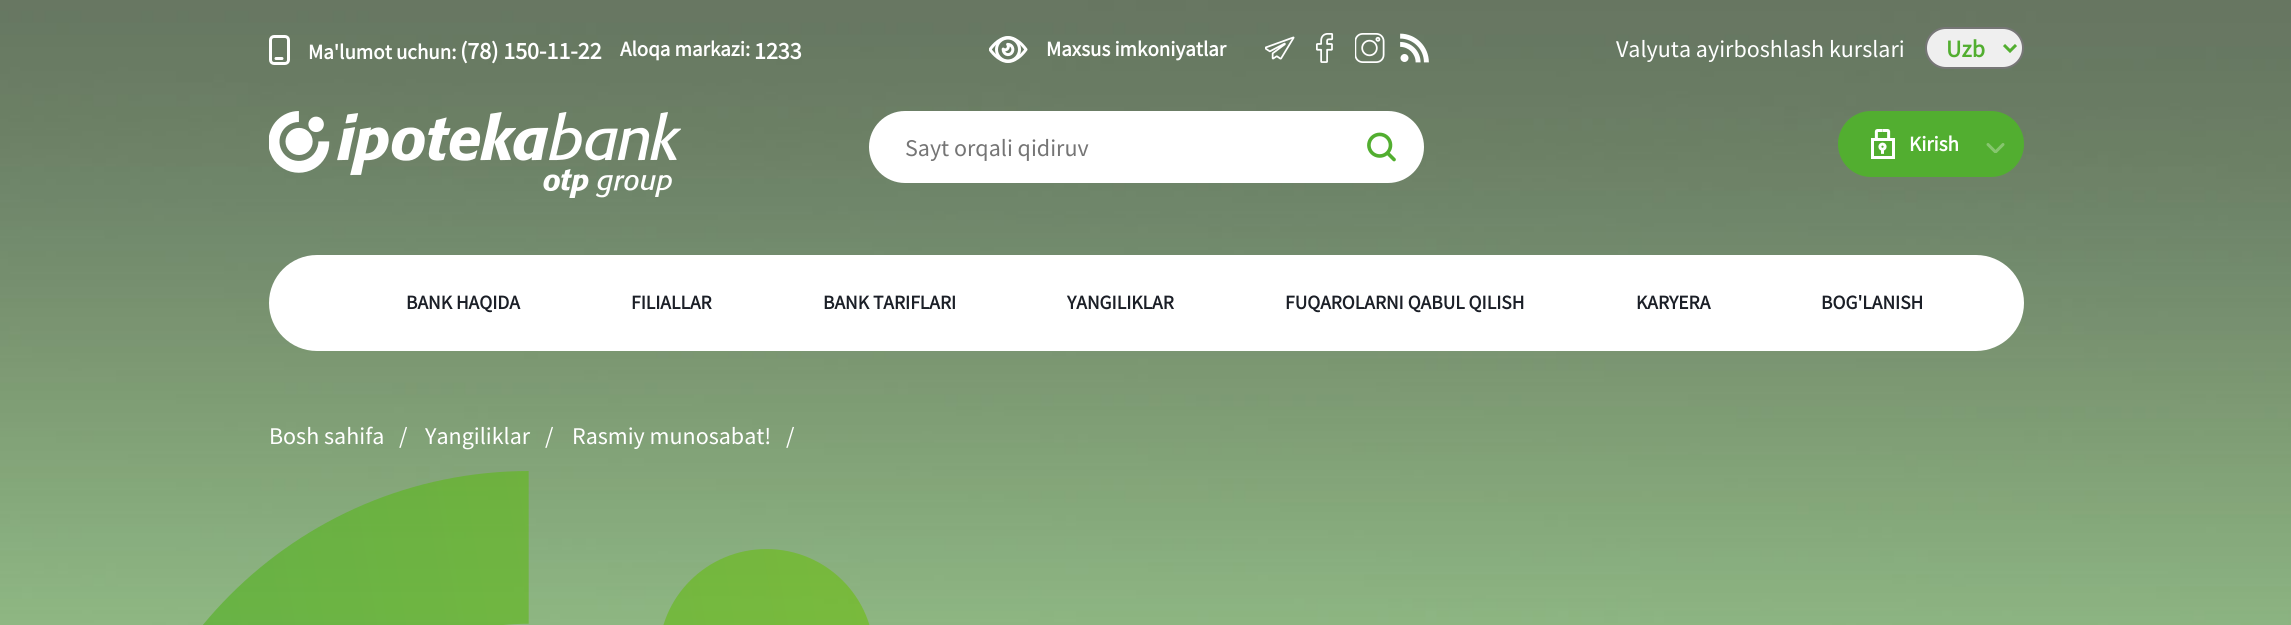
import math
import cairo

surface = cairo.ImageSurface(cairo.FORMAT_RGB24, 2291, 625)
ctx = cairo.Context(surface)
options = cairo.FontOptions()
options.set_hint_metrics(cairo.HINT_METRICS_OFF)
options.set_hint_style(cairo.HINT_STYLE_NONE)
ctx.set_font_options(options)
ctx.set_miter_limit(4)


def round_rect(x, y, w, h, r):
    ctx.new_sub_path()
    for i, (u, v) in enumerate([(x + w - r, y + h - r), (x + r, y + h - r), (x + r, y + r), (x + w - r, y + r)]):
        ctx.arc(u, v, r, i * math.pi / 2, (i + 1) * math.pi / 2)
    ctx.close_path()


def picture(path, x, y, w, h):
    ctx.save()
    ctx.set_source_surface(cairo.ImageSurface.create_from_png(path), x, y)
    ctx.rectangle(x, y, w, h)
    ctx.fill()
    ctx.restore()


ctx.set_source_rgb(1, 1, 1)
ctx.paint()
picture("img9.png", 0, 0, 2291, 625)
round_rect(270.5, 36.5, 18, 27, 3.5)
ctx.set_source_rgb(1, 1, 1)
ctx.set_line_width(3)
ctx.stroke()
ctx.new_path()
ctx.move_to(276, 58.5)
ctx.line_to(282, 58.5)
ctx.set_line_cap(cairo.LINE_CAP_ROUND)
ctx.set_line_join(cairo.LINE_JOIN_ROUND)
ctx.stroke()
ctx.select_font_face("Source Sans Pro", cairo.FONT_SLANT_NORMAL, cairo.FONT_WEIGHT_BOLD)
ctx.set_font_size(21)
ctx.move_to(308, 59)
ctx.show_text("Ma'lumot uchun:")
ctx.set_font_size(24)
ctx.move_to(460, 59)
ctx.show_text("(78) 150-11-22")
ctx.set_font_size(21)
ctx.move_to(620, 56)
ctx.show_text("Aloqa markazi:")
ctx.set_font_size(24)
ctx.move_to(754, 59)
ctx.show_text("1233")
picture("img1.png", 989, 36, 39, 27)
ctx.set_font_size(21)
ctx.move_to(1046, 56)
ctx.show_text("Maxsus imkoniyatlar")
picture("img2.png", 1265, 36, 30, 24)
picture("img3.png", 1316, 33, 18, 30)
picture("img4.png", 1355, 33, 30, 30)
picture("img5.png", 1400, 33, 29, 30)
ctx.select_font_face("Source Sans Pro")
ctx.set_font_size(24)
ctx.move_to(1616, 57)
ctx.show_text("Valyuta ayirboshlash kurslari")
ctx.set_source_rgb(0.937, 0.937, 0.937)
round_rect(1926, 28, 97, 40, 20)
ctx.fill_preserve()
ctx.set_source_rgb(0.463, 0.463, 0.463)
ctx.set_line_width(2)
ctx.set_line_cap(cairo.LINE_CAP_BUTT)
ctx.set_line_join(cairo.LINE_JOIN_MITER)
ctx.stroke()
ctx.new_path()
ctx.move_to(2004, 45)
ctx.line_to(2010, 51)
ctx.line_to(2016, 45)
ctx.set_source_rgb(0.322, 0.682, 0.188)
ctx.set_line_width(3)
ctx.stroke()
ctx.select_font_face("Source Sans Pro", cairo.FONT_SLANT_NORMAL, cairo.FONT_WEIGHT_BOLD)
ctx.move_to(1946, 57)
ctx.show_text("Uzb")
picture("img6.png", 269, 111, 412, 87)
ctx.set_source_rgb(1, 1, 1)
round_rect(869, 111, 555, 72, 36)
ctx.fill()
ctx.select_font_face("Source Sans Pro")
ctx.set_source_rgb(0.459, 0.459, 0.459)
ctx.move_to(905, 156)
ctx.show_text("Sayt orqali qidiruv")
picture("img7.png", 1367, 132, 29, 30)
ctx.set_source_rgb(0.322, 0.682, 0.188)
round_rect(1838, 111, 186, 66, 33)
ctx.fill()
picture("img8.png", 1871, 129, 24, 30)
ctx.select_font_face("Source Sans Pro", cairo.FONT_SLANT_NORMAL, cairo.FONT_WEIGHT_BOLD)
ctx.set_font_size(21)
ctx.set_source_rgb(1, 1, 1)
ctx.move_to(1909, 151)
ctx.show_text("Kirish")
ctx.save()
ctx.rectangle(1986, 143, 20, 10)
ctx.clip()
ctx.new_path()
ctx.move_to(2003, 144.5)
ctx.line_to(1995.5, 152)
ctx.line_to(1988, 144.5)
ctx.set_source_rgb(0.525, 0.776, 0.431)
ctx.set_line_cap(cairo.LINE_CAP_ROUND)
ctx.set_line_join(cairo.LINE_JOIN_ROUND)
ctx.stroke()
ctx.restore()
round_rect(269, 255, 1755, 96, 48)
ctx.fill()
ctx.set_font_size(19.5)
ctx.set_source_rgb(0.106, 0.122, 0.153)
ctx.move_to(406, 309)
ctx.show_text("BANK HAQIDA")
ctx.move_to(631, 309)
ctx.show_text("FILIALLAR")
ctx.move_to(823, 309)
ctx.show_text("BANK TARIFLARI")
ctx.move_to(1067, 309)
ctx.show_text("YANGILIKLAR")
ctx.move_to(1285, 309)
ctx.show_text("FUQAROLARNI QABUL QILISH")
ctx.move_to(1636, 309)
ctx.show_text("KARYERA")
ctx.move_to(1821, 309)
ctx.show_text("BOG'LANISH")
ctx.select_font_face("Source Sans Pro")
ctx.set_font_size(24)
ctx.set_source_rgb(1, 1, 1)
ctx.move_to(269, 444)
ctx.show_text("Bosh sahifa")
ctx.move_to(399, 444)
ctx.show_text("/")
ctx.move_to(425, 444)
ctx.show_text("Yangiliklar")
ctx.move_to(545, 444)
ctx.show_text("/")
ctx.move_to(572, 444)
ctx.show_text("Rasmiy munosabat!")
ctx.move_to(786, 444)
ctx.show_text("/")
picture("img10.png", 203, 471, 667, 154)
surface.write_to_png("page.png")
